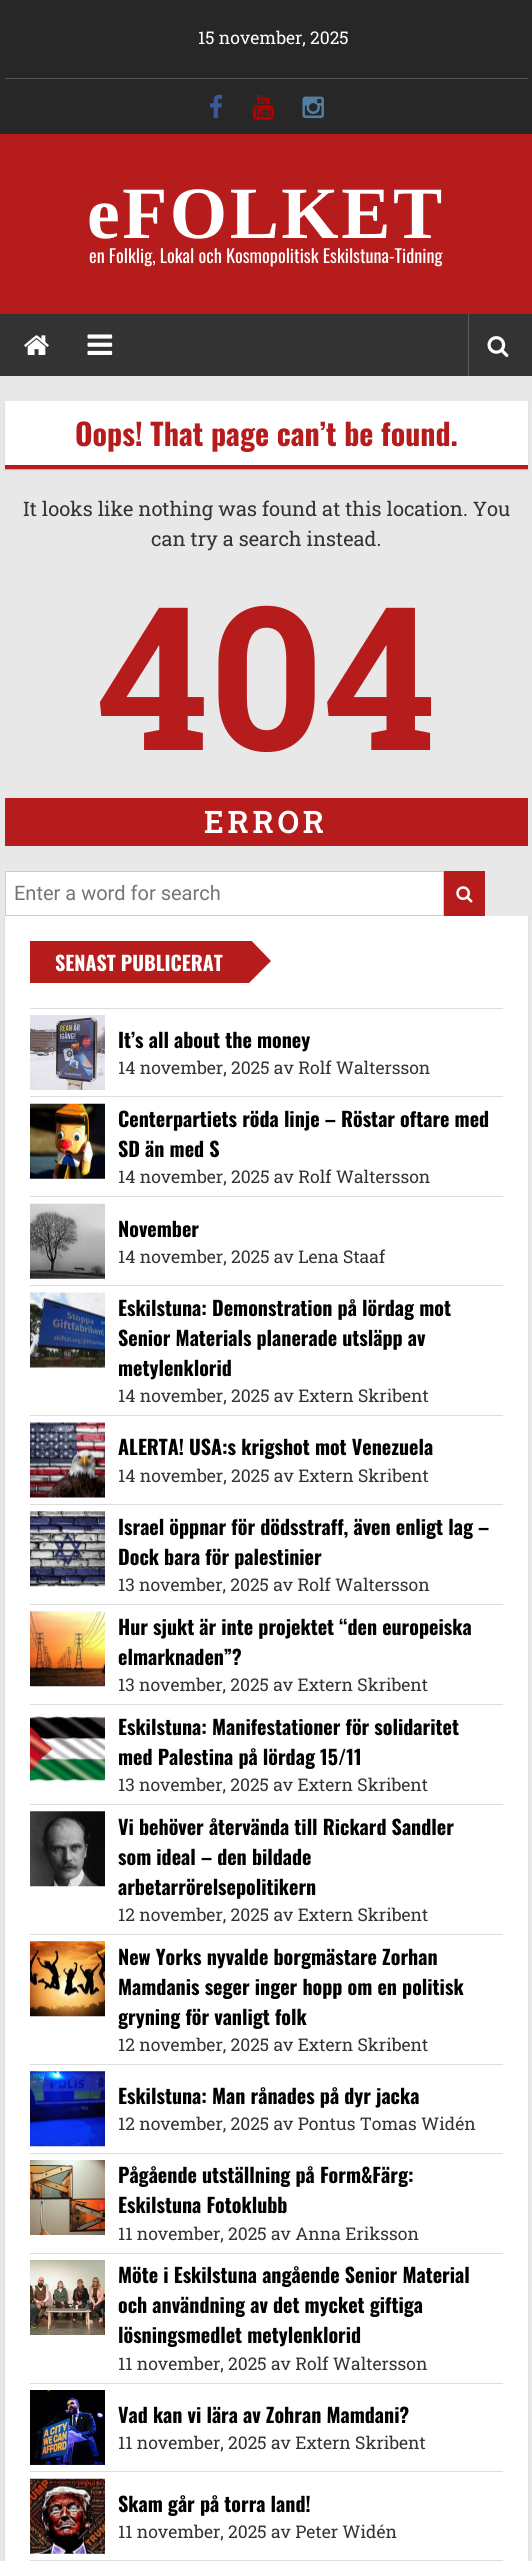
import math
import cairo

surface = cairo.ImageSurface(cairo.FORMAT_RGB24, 532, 2561)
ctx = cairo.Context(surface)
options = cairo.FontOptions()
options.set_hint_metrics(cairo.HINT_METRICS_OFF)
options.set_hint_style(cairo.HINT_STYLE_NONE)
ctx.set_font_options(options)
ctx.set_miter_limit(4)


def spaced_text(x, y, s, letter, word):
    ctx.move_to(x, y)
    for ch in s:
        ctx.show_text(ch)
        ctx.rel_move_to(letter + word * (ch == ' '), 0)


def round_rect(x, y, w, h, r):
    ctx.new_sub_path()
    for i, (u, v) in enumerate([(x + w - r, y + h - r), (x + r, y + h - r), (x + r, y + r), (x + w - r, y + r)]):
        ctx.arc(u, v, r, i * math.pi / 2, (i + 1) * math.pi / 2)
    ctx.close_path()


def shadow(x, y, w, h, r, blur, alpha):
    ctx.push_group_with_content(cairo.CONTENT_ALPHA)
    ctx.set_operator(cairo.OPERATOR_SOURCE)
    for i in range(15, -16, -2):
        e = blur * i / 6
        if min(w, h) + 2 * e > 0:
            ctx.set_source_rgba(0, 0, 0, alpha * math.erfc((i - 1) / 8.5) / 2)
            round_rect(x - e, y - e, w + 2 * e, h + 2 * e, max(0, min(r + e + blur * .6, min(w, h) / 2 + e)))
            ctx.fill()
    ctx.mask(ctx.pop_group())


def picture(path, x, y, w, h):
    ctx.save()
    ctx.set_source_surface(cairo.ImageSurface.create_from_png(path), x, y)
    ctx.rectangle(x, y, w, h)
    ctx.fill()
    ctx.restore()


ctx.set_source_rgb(0.91, 0.91, 0.91)
ctx.paint()
ctx.set_source_rgb(0.153, 0.153, 0.153)
ctx.rectangle(0, 0, 532, 134)
ctx.fill()
ctx.select_font_face("Roboto Slab")
ctx.set_font_size(17.5)
ctx.set_source_rgb(1, 1, 1)
ctx.move_to(198, 44)
ctx.show_text("15 november, 2025")
ctx.set_source_rgb(0.322, 0.322, 0.322)
ctx.rectangle(5, 78, 523, 1)
ctx.fill()
picture("img1.png", 210, 94, 13, 25)
picture("img2.png", 252, 94, 22, 26)
picture("img3.png", 302, 96, 22, 23)
ctx.set_source_rgb(0.718, 0.11, 0.11)
ctx.rectangle(0, 134, 532, 180)
ctx.fill()
ctx.select_font_face("Liberation Serif", cairo.FONT_SLANT_NORMAL, cairo.FONT_WEIGHT_BOLD)
ctx.set_font_size(73.75)
ctx.set_source_rgb(1, 1, 1)
spaced_text(87, 238, "eFOLKET", 2.5, 0)
ctx.select_font_face("Oswald")
ctx.set_font_size(18.25)
ctx.move_to(89, 263)
ctx.show_text("en Folklig, Lokal och Kosmopolitisk Eskilstuna-Tidning")
ctx.set_source_rgb(0.2, 0.2, 0.2)
ctx.rectangle(0, 314, 532, 62)
ctx.fill()
picture("img4.png", 24, 335, 25, 20)
picture("img5.png", 87, 334, 26, 21)
ctx.set_source_rgb(0.361, 0.361, 0.361)
ctx.rectangle(468, 314, 1, 62)
ctx.fill()
picture("img6.png", 487, 336, 22, 21)
ctx.set_source_rgb(0, 0, 0)
shadow(5, 403, 523, 67, 0, 1, 0.12)
ctx.set_source_rgba(0, 0, 0, 0.14)
ctx.new_path()
ctx.move_to(5, 469)
ctx.line_to(5, 470)
ctx.line_to(528, 470)
ctx.line_to(528, 403)
ctx.line_to(528, 469)
ctx.close_path()
ctx.fill()
ctx.set_source_rgb(1, 1, 1)
ctx.rectangle(5, 401, 523, 64)
ctx.fill()
ctx.set_source_rgb(0.718, 0.11, 0.11)
ctx.rectangle(5, 465, 523, 4)
ctx.fill()
ctx.select_font_face("Oswald", cairo.FONT_SLANT_NORMAL, cairo.FONT_WEIGHT_BOLD)
ctx.set_font_size(30)
ctx.move_to(75, 446)
ctx.show_text("Oops! That page can’t be found.")
ctx.select_font_face("Roboto Slab")
ctx.set_font_size(20)
ctx.set_source_rgb(0.2, 0.2, 0.2)
ctx.move_to(23, 516)
ctx.show_text("It looks like nothing was found at this location. You")
ctx.move_to(151, 546)
ctx.show_text("can try a search instead.")
ctx.select_font_face("Roboto Slab", cairo.FONT_SLANT_NORMAL, cairo.FONT_WEIGHT_BOLD)
ctx.set_font_size(200)
ctx.set_source_rgb(0.718, 0.11, 0.11)
ctx.move_to(96, 750)
ctx.show_text("404")
ctx.rectangle(5, 798, 523, 48)
ctx.fill()
ctx.select_font_face("Roboto Slab SemiBold")
ctx.set_font_size(31)
ctx.set_source_rgb(1, 1, 1)
spaced_text(204, 833, "ERROR", 3.75, 0)
ctx.set_source_rgb(0, 0, 0)
shadow(5, 918, 523, 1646, 0, 1, 0.12)
ctx.set_source_rgb(1, 1, 1)
ctx.rectangle(5.5, 871.5, 438, 44)
ctx.fill_preserve()
ctx.set_source_rgb(0.8, 0.8, 0.8)
ctx.set_line_width(1)
ctx.stroke()
ctx.select_font_face("Roboto")
ctx.set_font_size(20)
ctx.set_source_rgb(0.459, 0.459, 0.459)
ctx.move_to(14, 900)
ctx.show_text("Enter a word for search")
ctx.set_source_rgb(0.718, 0.11, 0.11)
ctx.rectangle(444, 871, 41, 45)
ctx.fill()
picture("img7.png", 456, 886, 17, 17)
ctx.set_source_rgb(1, 1, 1)
ctx.rectangle(5, 916, 523, 1645)
ctx.fill()
ctx.set_source_rgb(0.718, 0.11, 0.11)
ctx.rectangle(30, 941, 204, 42)
ctx.fill()
ctx.save()
ctx.rectangle(30, 941, 473, 42)
ctx.clip()
ctx.new_path()
ctx.move_to(271, 961)
ctx.line_to(240, 992)
ctx.line_to(211, 962)
ctx.line_to(243, 932)
ctx.close_path()
ctx.fill()
ctx.restore()
ctx.select_font_face("Oswald", cairo.FONT_SLANT_NORMAL, cairo.FONT_WEIGHT_BOLD)
ctx.set_source_rgb(1, 1, 1)
ctx.move_to(55, 971)
ctx.show_text("SENAST PUBLICERAT")
ctx.set_source_rgb(0.867, 0.867, 0.867)
ctx.rectangle(30, 1008, 473, 1)
ctx.fill()
picture("img8.png", 30, 1015, 75, 75)
ctx.rectangle(30, 1096, 473, 1)
ctx.fill()
ctx.set_source_rgb(0, 0, 0)
ctx.move_to(118, 1048)
ctx.show_text("It’s all about the money")
ctx.select_font_face("Roboto Slab")
ctx.set_font_size(17.5)
ctx.set_source_rgb(0.2, 0.2, 0.2)
ctx.move_to(118, 1074)
ctx.show_text("14 november, 2025 av Rolf Waltersson")
picture("img9.png", 30, 1103, 75, 76)
ctx.set_source_rgb(0.867, 0.867, 0.867)
ctx.rectangle(30, 1196, 473, 1)
ctx.fill()
ctx.select_font_face("Oswald", cairo.FONT_SLANT_NORMAL, cairo.FONT_WEIGHT_BOLD)
ctx.set_font_size(20)
ctx.set_source_rgb(0, 0, 0)
ctx.move_to(118, 1127)
ctx.show_text("Centerpartiets röda linje – Röstar oftare med")
ctx.move_to(118, 1157)
ctx.show_text("SD än med S")
ctx.select_font_face("Roboto Slab")
ctx.set_font_size(17.5)
ctx.set_source_rgb(0.2, 0.2, 0.2)
ctx.move_to(118, 1183)
ctx.show_text("14 november, 2025 av Rolf Waltersson")
picture("img10.png", 30, 1203, 75, 76)
ctx.set_source_rgb(0.867, 0.867, 0.867)
ctx.rectangle(30, 1285, 473, 1)
ctx.fill()
ctx.select_font_face("Oswald", cairo.FONT_SLANT_NORMAL, cairo.FONT_WEIGHT_BOLD)
ctx.set_font_size(20)
ctx.set_source_rgb(0, 0, 0)
ctx.move_to(118, 1237)
ctx.show_text("November")
ctx.select_font_face("Roboto Slab")
ctx.set_font_size(17.5)
ctx.set_source_rgb(0.2, 0.2, 0.2)
ctx.move_to(118, 1263)
ctx.show_text("14 november, 2025 av Lena Staaf")
picture("img11.png", 30, 1292, 75, 76)
ctx.set_source_rgb(0.867, 0.867, 0.867)
ctx.rectangle(30, 1415, 473, 1)
ctx.fill()
ctx.select_font_face("Oswald", cairo.FONT_SLANT_NORMAL, cairo.FONT_WEIGHT_BOLD)
ctx.set_font_size(20)
ctx.set_source_rgb(0, 0, 0)
ctx.move_to(118, 1316)
ctx.show_text("Eskilstuna: Demonstration på lördag mot")
ctx.move_to(118, 1346)
ctx.show_text("Senior Materials planerade utsläpp av")
ctx.move_to(118, 1376)
ctx.show_text("metylenklorid")
ctx.select_font_face("Roboto Slab")
ctx.set_font_size(17.5)
ctx.set_source_rgb(0.2, 0.2, 0.2)
ctx.move_to(118, 1402)
ctx.show_text("14 november, 2025 av Extern Skribent")
picture("img12.png", 30, 1422, 75, 76)
ctx.set_source_rgb(0.867, 0.867, 0.867)
ctx.rectangle(30, 1504, 473, 1)
ctx.fill()
ctx.select_font_face("Oswald", cairo.FONT_SLANT_NORMAL, cairo.FONT_WEIGHT_BOLD)
ctx.set_font_size(20)
ctx.set_source_rgb(0, 0, 0)
ctx.move_to(118, 1455)
ctx.show_text("ALERTA! USA:s krigshot mot Venezuela")
ctx.select_font_face("Roboto Slab")
ctx.set_font_size(17.5)
ctx.set_source_rgb(0.2, 0.2, 0.2)
ctx.move_to(118, 1482)
ctx.show_text("14 november, 2025 av Extern Skribent")
picture("img13.png", 30, 1511, 75, 76)
ctx.set_source_rgb(0.867, 0.867, 0.867)
ctx.rectangle(30, 1604, 473, 1)
ctx.fill()
ctx.select_font_face("Oswald", cairo.FONT_SLANT_NORMAL, cairo.FONT_WEIGHT_BOLD)
ctx.set_font_size(20)
ctx.set_source_rgb(0, 0, 0)
ctx.move_to(118, 1535)
ctx.show_text("Israel öppnar för dödsstraff, även enligt lag –")
ctx.move_to(118, 1565)
ctx.show_text("Dock bara för palestinier")
ctx.select_font_face("Roboto Slab")
ctx.set_font_size(17.5)
ctx.set_source_rgb(0.2, 0.2, 0.2)
ctx.move_to(118, 1591)
ctx.show_text("13 november, 2025 av Rolf Waltersson")
picture("img14.png", 30, 1611, 75, 76)
ctx.set_source_rgb(0.867, 0.867, 0.867)
ctx.rectangle(30, 1704, 473, 1)
ctx.fill()
ctx.select_font_face("Oswald", cairo.FONT_SLANT_NORMAL, cairo.FONT_WEIGHT_BOLD)
ctx.set_font_size(20)
ctx.set_source_rgb(0, 0, 0)
ctx.move_to(118, 1635)
ctx.show_text("Hur sjukt är inte projektet “den europeiska")
ctx.move_to(118, 1665)
ctx.show_text("elmarknaden”?")
ctx.select_font_face("Roboto Slab")
ctx.set_font_size(17.5)
ctx.set_source_rgb(0.2, 0.2, 0.2)
ctx.move_to(118, 1691)
ctx.show_text("13 november, 2025 av Extern Skribent")
picture("img15.png", 30, 1716, 75, 68)
ctx.set_source_rgb(0.867, 0.867, 0.867)
ctx.rectangle(30, 1804, 473, 1)
ctx.fill()
ctx.select_font_face("Oswald", cairo.FONT_SLANT_NORMAL, cairo.FONT_WEIGHT_BOLD)
ctx.set_font_size(20)
ctx.set_source_rgb(0, 0, 0)
ctx.move_to(118, 1735)
ctx.show_text("Eskilstuna: Manifestationer för solidaritet")
ctx.move_to(118, 1765)
ctx.show_text("med Palestina på lördag 15/11")
ctx.select_font_face("Roboto Slab")
ctx.set_font_size(17.5)
ctx.set_source_rgb(0.2, 0.2, 0.2)
ctx.move_to(118, 1791)
ctx.show_text("13 november, 2025 av Extern Skribent")
picture("img16.png", 30, 1811, 75, 76)
ctx.set_source_rgb(0.867, 0.867, 0.867)
ctx.rectangle(30, 1934, 473, 1)
ctx.fill()
ctx.select_font_face("Oswald", cairo.FONT_SLANT_NORMAL, cairo.FONT_WEIGHT_BOLD)
ctx.set_font_size(20)
ctx.set_source_rgb(0, 0, 0)
ctx.move_to(118, 1835)
ctx.show_text("Vi behöver återvända till Rickard Sandler")
ctx.move_to(118, 1865)
ctx.show_text("som ideal – den bildade")
ctx.move_to(118, 1895)
ctx.show_text("arbetarrörelsepolitikern")
ctx.select_font_face("Roboto Slab")
ctx.set_font_size(17.5)
ctx.set_source_rgb(0.2, 0.2, 0.2)
ctx.move_to(118, 1921)
ctx.show_text("12 november, 2025 av Extern Skribent")
picture("img17.png", 30, 1941, 75, 76)
ctx.set_source_rgb(0.867, 0.867, 0.867)
ctx.rectangle(30, 2064, 473, 1)
ctx.fill()
ctx.select_font_face("Oswald", cairo.FONT_SLANT_NORMAL, cairo.FONT_WEIGHT_BOLD)
ctx.set_font_size(20)
ctx.set_source_rgb(0, 0, 0)
ctx.move_to(118, 1965)
ctx.show_text("New Yorks nyvalde borgmästare Zorhan")
ctx.move_to(118, 1995)
ctx.show_text("Mamdanis seger inger hopp om en politisk")
ctx.move_to(118, 2025)
ctx.show_text("gryning för vanligt folk")
ctx.select_font_face("Roboto Slab")
ctx.set_font_size(17.5)
ctx.set_source_rgb(0.2, 0.2, 0.2)
ctx.move_to(118, 2051)
ctx.show_text("12 november, 2025 av Extern Skribent")
picture("img18.png", 30, 2071, 75, 76)
ctx.set_source_rgb(0.867, 0.867, 0.867)
ctx.rectangle(30, 2153, 473, 1)
ctx.fill()
ctx.select_font_face("Oswald", cairo.FONT_SLANT_NORMAL, cairo.FONT_WEIGHT_BOLD)
ctx.set_font_size(20)
ctx.set_source_rgb(0, 0, 0)
ctx.move_to(118, 2104)
ctx.show_text("Eskilstuna: Man rånades på dyr jacka")
ctx.select_font_face("Roboto Slab")
ctx.set_font_size(17.5)
ctx.set_source_rgb(0.2, 0.2, 0.2)
ctx.move_to(118, 2130)
ctx.show_text("12 november, 2025 av Pontus Tomas Widén")
picture("img19.png", 30, 2160, 75, 75)
ctx.set_source_rgb(0.867, 0.867, 0.867)
ctx.rectangle(30, 2253, 473, 1)
ctx.fill()
ctx.select_font_face("Oswald", cairo.FONT_SLANT_NORMAL, cairo.FONT_WEIGHT_BOLD)
ctx.set_font_size(20)
ctx.set_source_rgb(0, 0, 0)
ctx.move_to(118, 2183)
ctx.show_text("Pågående utställning på Form&Färg:")
ctx.move_to(118, 2213)
ctx.show_text("Eskilstuna Fotoklubb")
ctx.select_font_face("Roboto Slab")
ctx.set_font_size(17.5)
ctx.set_source_rgb(0.2, 0.2, 0.2)
ctx.move_to(118, 2240)
ctx.show_text("11 november, 2025 av Anna Eriksson")
picture("img20.png", 30, 2260, 75, 75)
ctx.set_source_rgb(0.867, 0.867, 0.867)
ctx.rectangle(30, 2383, 473, 1)
ctx.fill()
ctx.select_font_face("Oswald", cairo.FONT_SLANT_NORMAL, cairo.FONT_WEIGHT_BOLD)
ctx.set_font_size(20)
ctx.set_source_rgb(0, 0, 0)
ctx.move_to(118, 2283)
ctx.show_text("Möte i Eskilstuna angående Senior Material")
ctx.move_to(118, 2313)
ctx.show_text("och användning av det mycket giftiga")
ctx.move_to(118, 2343)
ctx.show_text("lösningsmedlet metylenklorid")
ctx.select_font_face("Roboto Slab")
ctx.set_font_size(17.5)
ctx.set_source_rgb(0.2, 0.2, 0.2)
ctx.move_to(118, 2370)
ctx.show_text("11 november, 2025 av Rolf Waltersson")
picture("img21.png", 30, 2390, 75, 75)
ctx.set_source_rgb(0.867, 0.867, 0.867)
ctx.rectangle(30, 2471, 473, 1)
ctx.fill()
ctx.select_font_face("Oswald", cairo.FONT_SLANT_NORMAL, cairo.FONT_WEIGHT_BOLD)
ctx.set_font_size(20)
ctx.set_source_rgb(0, 0, 0)
ctx.move_to(118, 2423)
ctx.show_text("Vad kan vi lära av Zohran Mamdani?")
ctx.select_font_face("Roboto Slab")
ctx.set_font_size(17.5)
ctx.set_source_rgb(0.2, 0.2, 0.2)
ctx.move_to(118, 2449)
ctx.show_text("11 november, 2025 av Extern Skribent")
picture("img22.png", 30, 2478, 75, 76)
ctx.set_source_rgb(0.867, 0.867, 0.867)
ctx.rectangle(30, 2560, 473, 1)
ctx.fill()
ctx.select_font_face("Oswald", cairo.FONT_SLANT_NORMAL, cairo.FONT_WEIGHT_BOLD)
ctx.set_font_size(20)
ctx.set_source_rgb(0, 0, 0)
ctx.move_to(118, 2512)
ctx.show_text("Skam går på torra land!")
ctx.select_font_face("Roboto Slab")
ctx.set_font_size(17.5)
ctx.set_source_rgb(0.2, 0.2, 0.2)
ctx.move_to(118, 2538)
ctx.show_text("11 november, 2025 av Peter Widén")
surface.write_to_png("page.png")
